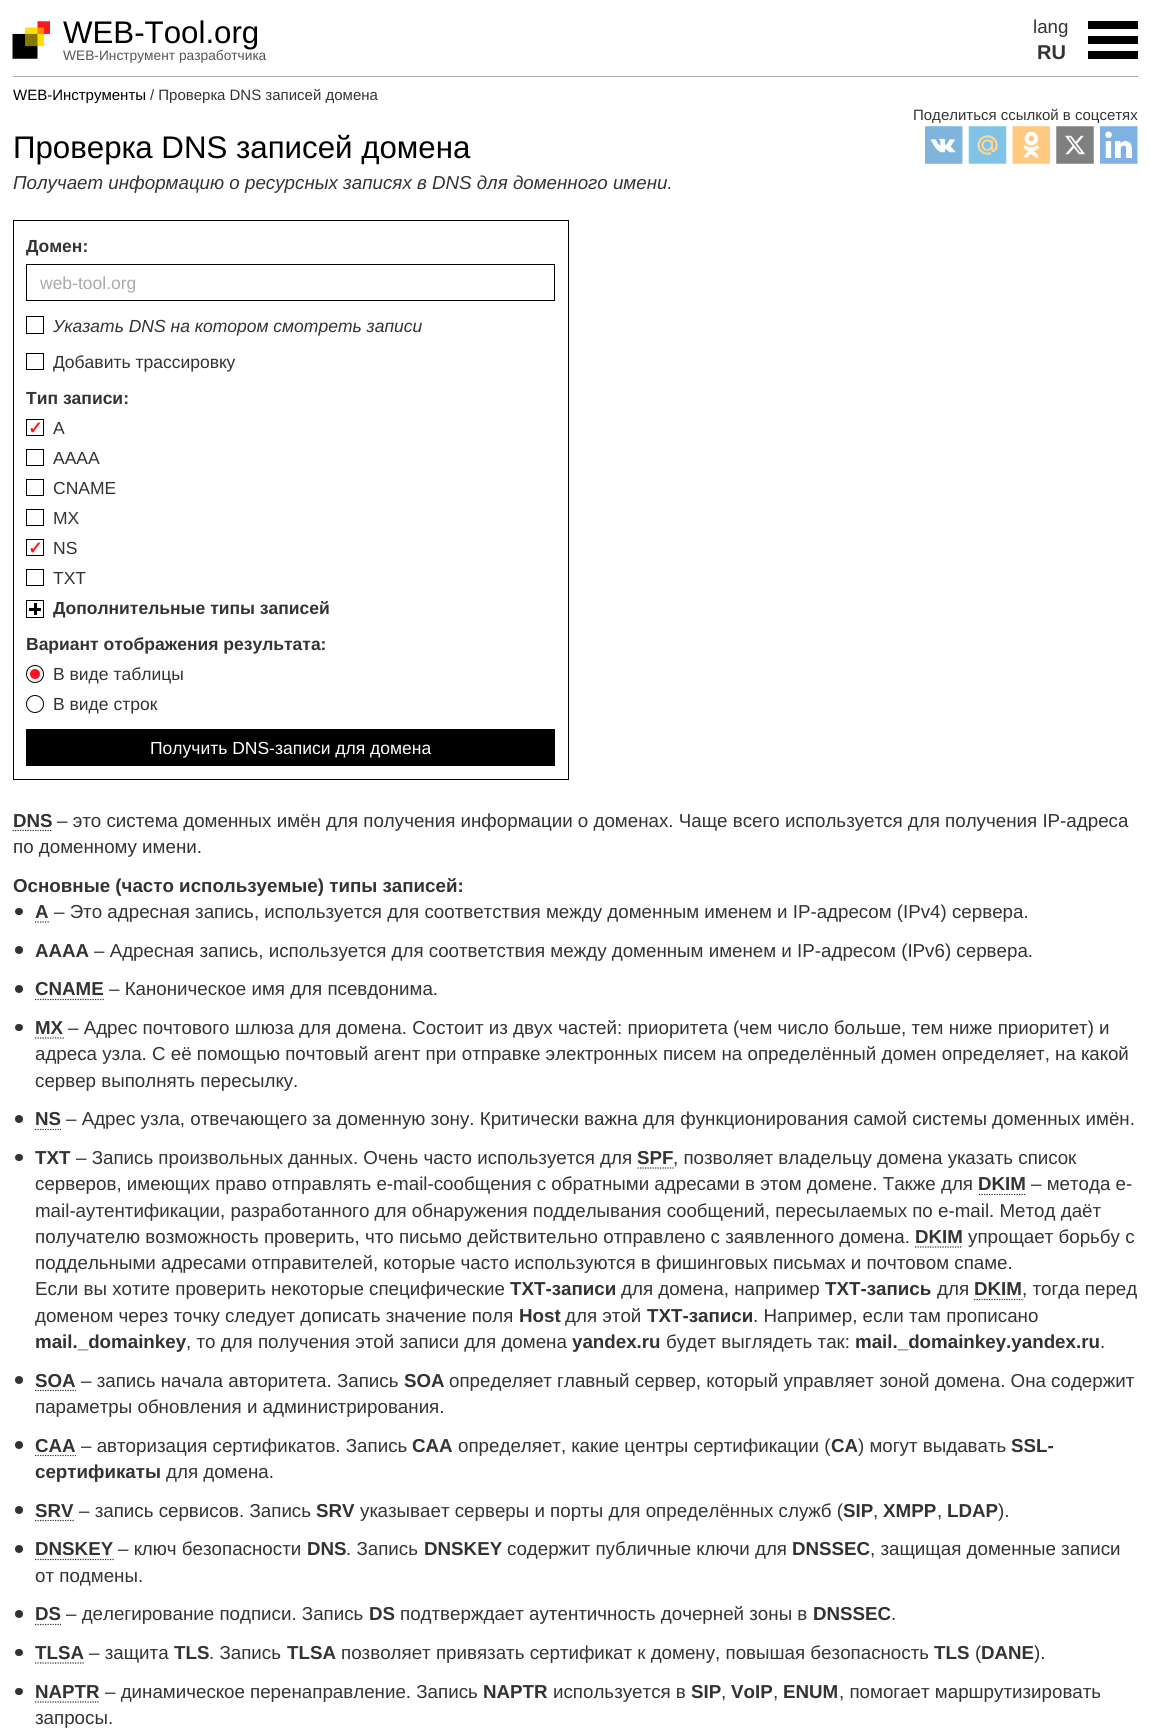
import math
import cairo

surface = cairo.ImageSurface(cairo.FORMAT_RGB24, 1150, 1733)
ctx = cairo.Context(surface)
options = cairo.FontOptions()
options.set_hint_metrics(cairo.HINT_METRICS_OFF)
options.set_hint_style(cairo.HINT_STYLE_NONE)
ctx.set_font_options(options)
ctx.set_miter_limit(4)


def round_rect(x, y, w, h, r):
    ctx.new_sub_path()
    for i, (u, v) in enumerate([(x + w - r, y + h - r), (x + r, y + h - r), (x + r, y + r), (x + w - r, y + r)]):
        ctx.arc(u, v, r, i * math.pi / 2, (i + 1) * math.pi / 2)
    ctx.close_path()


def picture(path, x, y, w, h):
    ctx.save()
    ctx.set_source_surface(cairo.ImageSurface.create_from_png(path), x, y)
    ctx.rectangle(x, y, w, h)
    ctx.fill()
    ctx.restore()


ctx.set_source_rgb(1, 1, 1)
ctx.paint()
ctx.set_source_rgb(0.667, 0.667, 0.667)
ctx.rectangle(13, 76, 1125, 1)
ctx.fill()
picture("img1.png", 12, 21, 38, 38)
ctx.select_font_face("Liberation Sans")
ctx.set_font_size(31.25)
ctx.set_source_rgb(0, 0, 0)
ctx.move_to(63, 43)
ctx.show_text("WEB-Tool.org")
ctx.set_font_size(13.75)
ctx.set_source_rgb(0.333, 0.333, 0.333)
ctx.move_to(63, 60)
ctx.show_text("WEB-Инструмент разработчика")
ctx.set_font_size(18.75)
ctx.set_source_rgb(0.2, 0.2, 0.2)
ctx.move_to(1033, 33)
ctx.show_text("lang")
ctx.select_font_face("Liberation Sans", cairo.FONT_SLANT_NORMAL, cairo.FONT_WEIGHT_BOLD)
ctx.set_font_size(20)
ctx.move_to(1037, 59)
ctx.show_text("RU")
ctx.set_source_rgb(0, 0, 0)
ctx.rectangle(1088, 36, 50, 8)
ctx.fill()
ctx.rectangle(1088, 21, 50, 8)
ctx.fill()
ctx.rectangle(1088, 51, 50, 8)
ctx.fill()
ctx.select_font_face("Liberation Sans")
ctx.set_font_size(15)
ctx.move_to(13, 100)
ctx.show_text("WEB-Инструменты")
ctx.set_source_rgb(0.2, 0.2, 0.2)
ctx.move_to(150, 100)
ctx.show_text("/ Проверка DNS записей домена")
ctx.move_to(913, 120)
ctx.show_text("Поделиться ссылкой в соцсетях")
picture("img2.png", 925, 126, 38, 38)
picture("img3.png", 968, 126, 39, 38)
picture("img4.png", 1012, 126, 38, 38)
picture("img5.png", 1056, 126, 38, 38)
picture("img6.png", 1100, 126, 38, 38)
ctx.set_font_size(31.25)
ctx.set_source_rgb(0, 0, 0)
ctx.move_to(13, 158)
ctx.show_text("Проверка DNS записей домена")
ctx.select_font_face("Liberation Sans", cairo.FONT_SLANT_ITALIC)
ctx.set_font_size(18.75)
ctx.set_source_rgb(0.2, 0.2, 0.2)
ctx.move_to(13, 189)
ctx.show_text("Получает информацию о ресурсных записях в DNS для доменного имени.")
ctx.rectangle(13.5, 220.5, 555, 559)
ctx.set_source_rgb(0, 0, 0)
ctx.set_line_width(1)
ctx.stroke()
ctx.select_font_face("Liberation Sans", cairo.FONT_SLANT_NORMAL, cairo.FONT_WEIGHT_BOLD)
ctx.set_font_size(17.5)
ctx.set_source_rgb(0.2, 0.2, 0.2)
ctx.move_to(26, 252)
ctx.show_text("Домен:")
ctx.rectangle(26.5, 264.5, 528, 36)
ctx.set_source_rgb(0, 0, 0)
ctx.stroke()
ctx.select_font_face("Liberation Sans")
ctx.set_source_rgb(0.667, 0.667, 0.667)
ctx.move_to(40, 289)
ctx.show_text("web-tool.org")
ctx.rectangle(26.5, 316.5, 17, 17)
ctx.set_source_rgb(0, 0, 0)
ctx.stroke()
ctx.select_font_face("Liberation Sans", cairo.FONT_SLANT_ITALIC)
ctx.set_source_rgb(0.2, 0.2, 0.2)
ctx.move_to(53, 332)
ctx.show_text("Указать DNS на котором смотреть записи")
ctx.rectangle(26.5, 353.5, 17, 16)
ctx.set_source_rgb(0, 0, 0)
ctx.stroke()
ctx.select_font_face("Liberation Sans")
ctx.set_source_rgb(0.2, 0.2, 0.2)
ctx.move_to(53, 368)
ctx.show_text("Добавить трассировку")
ctx.select_font_face("Liberation Sans", cairo.FONT_SLANT_NORMAL, cairo.FONT_WEIGHT_BOLD)
ctx.move_to(26, 404)
ctx.show_text("Тип записи:")
ctx.rectangle(26.5, 419.5, 17, 16)
ctx.set_source_rgb(0, 0, 0)
ctx.stroke()
ctx.select_font_face("Liberation Sans")
ctx.set_source_rgb(0.2, 0.2, 0.2)
ctx.move_to(53, 434)
ctx.show_text("A")
ctx.select_font_face("DejaVu Sans", cairo.FONT_SLANT_NORMAL, cairo.FONT_WEIGHT_BOLD)
ctx.set_source_rgb(1, 0.082, 0.118)
ctx.move_to(28, 434)
ctx.show_text("✓")
ctx.rectangle(26.5, 449.5, 17, 16)
ctx.set_source_rgb(0, 0, 0)
ctx.stroke()
ctx.select_font_face("Liberation Sans")
ctx.set_source_rgb(0.2, 0.2, 0.2)
ctx.move_to(53, 464)
ctx.show_text("AAAA")
ctx.rectangle(26.5, 479.5, 17, 16)
ctx.set_source_rgb(0, 0, 0)
ctx.stroke()
ctx.set_source_rgb(0.2, 0.2, 0.2)
ctx.move_to(53, 494)
ctx.show_text("CNAME")
ctx.rectangle(26.5, 509.5, 17, 16)
ctx.set_source_rgb(0, 0, 0)
ctx.stroke()
ctx.set_source_rgb(0.2, 0.2, 0.2)
ctx.move_to(53, 524)
ctx.show_text("MX")
ctx.rectangle(26.5, 539.5, 17, 16)
ctx.set_source_rgb(0, 0, 0)
ctx.stroke()
ctx.set_source_rgb(0.2, 0.2, 0.2)
ctx.move_to(53, 554)
ctx.show_text("NS")
ctx.select_font_face("DejaVu Sans", cairo.FONT_SLANT_NORMAL, cairo.FONT_WEIGHT_BOLD)
ctx.set_source_rgb(1, 0.082, 0.118)
ctx.move_to(28, 554)
ctx.show_text("✓")
ctx.rectangle(26.5, 569.5, 17, 16)
ctx.set_source_rgb(0, 0, 0)
ctx.stroke()
ctx.select_font_face("Liberation Sans")
ctx.set_source_rgb(0.2, 0.2, 0.2)
ctx.move_to(53, 584)
ctx.show_text("TXT")
ctx.rectangle(26.5, 600.5, 17, 17)
ctx.set_source_rgb(0, 0, 0)
ctx.stroke()
ctx.rectangle(29, 608, 12, 3)
ctx.fill()
ctx.rectangle(34, 603, 3, 12)
ctx.fill()
ctx.select_font_face("Liberation Sans", cairo.FONT_SLANT_NORMAL, cairo.FONT_WEIGHT_BOLD)
ctx.set_source_rgb(0.2, 0.2, 0.2)
ctx.move_to(53, 614)
ctx.show_text("Дополнительные типы записей")
ctx.move_to(26, 650)
ctx.show_text("Вариант отображения результата:")
ctx.new_path()
ctx.arc(35, 674, 8.5, 0, 2 * math.pi)
ctx.set_source_rgb(0, 0, 0)
ctx.stroke()
ctx.select_font_face("Liberation Sans")
ctx.set_source_rgb(0.2, 0.2, 0.2)
ctx.move_to(53, 680)
ctx.show_text("В виде таблицы")
ctx.set_source_rgb(1, 0.082, 0.118)
ctx.new_path()
ctx.arc(35, 674, 5, 0, 2 * math.pi)
ctx.fill()
ctx.arc(35, 704, 8.5, 0, 2 * math.pi)
ctx.set_source_rgb(0, 0, 0)
ctx.stroke()
ctx.set_source_rgb(0.2, 0.2, 0.2)
ctx.move_to(53, 710)
ctx.show_text("В виде строк")
ctx.set_source_rgb(0, 0, 0)
ctx.rectangle(26, 729, 529, 37)
ctx.fill()
ctx.set_source_rgb(1, 1, 1)
ctx.move_to(150, 754)
ctx.show_text("Получить DNS-записи для домена")
ctx.select_font_face("Liberation Sans", cairo.FONT_SLANT_NORMAL, cairo.FONT_WEIGHT_BOLD)
ctx.set_font_size(18.75)
ctx.set_source_rgb(0.2, 0.2, 0.2)
ctx.move_to(13, 827)
ctx.show_text("DNS")
ctx.new_path()
ctx.move_to(12.5, 830.5)
ctx.line_to(52.5, 830.5)
ctx.set_line_width(1.2)
ctx.set_dash([1.25, 1.25])
ctx.stroke()
ctx.select_font_face("Liberation Sans")
ctx.move_to(57, 827)
ctx.show_text("– это система доменных имён для получения информации о доменах. Чаще всего используется для получения IP-адреса")
ctx.move_to(13, 853)
ctx.show_text("по доменному имени.")
ctx.select_font_face("Liberation Sans", cairo.FONT_SLANT_NORMAL, cairo.FONT_WEIGHT_BOLD)
ctx.move_to(13, 892)
ctx.show_text("Основные (часто используемые) типы записей:")
round_rect(15, 908, 8, 7, 3.5)
ctx.fill()
ctx.move_to(35, 918)
ctx.show_text("A")
ctx.new_path()
ctx.move_to(35, 922)
ctx.line_to(49, 922)
ctx.stroke()
ctx.select_font_face("Liberation Sans")
ctx.move_to(54, 918)
ctx.show_text("– Это адресная запись, используется для соответствия между доменным именем и IP-адресом (IPv4) сервера.")
ctx.new_path()
ctx.arc(19, 950, 4, 0, 2 * math.pi)
ctx.fill()
ctx.select_font_face("Liberation Sans", cairo.FONT_SLANT_NORMAL, cairo.FONT_WEIGHT_BOLD)
ctx.move_to(35, 957)
ctx.show_text("AAAA")
ctx.select_font_face("Liberation Sans")
ctx.move_to(94, 957)
ctx.show_text("– Адресная запись, используется для соответствия между доменным именем и IP-адресом (IPv6) сервера.")
ctx.new_path()
ctx.arc(19, 989, 4, 0, 2 * math.pi)
ctx.fill()
ctx.select_font_face("Liberation Sans", cairo.FONT_SLANT_NORMAL, cairo.FONT_WEIGHT_BOLD)
ctx.move_to(35, 995)
ctx.show_text("CNAME")
ctx.new_path()
ctx.move_to(35, 999.5)
ctx.line_to(104, 999.5)
ctx.stroke()
ctx.select_font_face("Liberation Sans")
ctx.move_to(109, 995)
ctx.show_text("– Каноническое имя для псевдонима.")
round_rect(15, 1024, 8, 7, 3.5)
ctx.fill()
ctx.select_font_face("Liberation Sans", cairo.FONT_SLANT_NORMAL, cairo.FONT_WEIGHT_BOLD)
ctx.move_to(35, 1034)
ctx.show_text("MX")
ctx.new_path()
ctx.move_to(35, 1038)
ctx.line_to(64, 1038)
ctx.stroke()
ctx.select_font_face("Liberation Sans")
ctx.move_to(68, 1034)
ctx.show_text("– Адрес почтового шлюза для домена. Состоит из двух частей: приоритета (чем число больше, тем ниже приоритет) и")
ctx.move_to(35, 1060)
ctx.show_text("адреса узла. С её помощью почтовый агент при отправке электронных писем на определённый домен определяет, на какой")
ctx.move_to(35, 1087)
ctx.show_text("сервер выполнять пересылку.")
ctx.new_path()
ctx.arc(19, 1119, 4, 0, 2 * math.pi)
ctx.fill()
ctx.select_font_face("Liberation Sans", cairo.FONT_SLANT_NORMAL, cairo.FONT_WEIGHT_BOLD)
ctx.move_to(35, 1125)
ctx.show_text("NS")
ctx.new_path()
ctx.move_to(35, 1129.5)
ctx.line_to(61, 1129.5)
ctx.stroke()
ctx.select_font_face("Liberation Sans")
ctx.move_to(66, 1125)
ctx.show_text("– Адрес узла, отвечающего за доменную зону. Критически важна для функционирования самой системы доменных имён.")
round_rect(15, 1154, 8, 7, 3.5)
ctx.fill()
ctx.select_font_face("Liberation Sans", cairo.FONT_SLANT_NORMAL, cairo.FONT_WEIGHT_BOLD)
ctx.move_to(35, 1164)
ctx.show_text("TXT")
ctx.select_font_face("Liberation Sans")
ctx.move_to(76, 1164)
ctx.show_text("– Запись произвольных данных. Очень часто используется для")
ctx.select_font_face("Liberation Sans", cairo.FONT_SLANT_NORMAL, cairo.FONT_WEIGHT_BOLD)
ctx.move_to(637, 1164)
ctx.show_text("SPF")
ctx.new_path()
ctx.move_to(637.5, 1168)
ctx.line_to(674, 1168)
ctx.stroke()
ctx.select_font_face("Liberation Sans")
ctx.move_to(673, 1164)
ctx.show_text(", позволяет владельцу домена указать список")
ctx.move_to(35, 1190)
ctx.show_text("серверов, имеющих право отправлять e-mail-сообщения с обратными адресами в этом домене. Также для")
ctx.select_font_face("Liberation Sans", cairo.FONT_SLANT_NORMAL, cairo.FONT_WEIGHT_BOLD)
ctx.move_to(978, 1190)
ctx.show_text("DKIM")
ctx.new_path()
ctx.move_to(979, 1194.5)
ctx.line_to(1026, 1194.5)
ctx.stroke()
ctx.select_font_face("Liberation Sans")
ctx.move_to(1031, 1190)
ctx.show_text("– метода e-")
ctx.move_to(35, 1217)
ctx.show_text("mail-аутентификации, разработанного для обнаружения подделывания сообщений, пересылаемых по e-mail. Метод даёт")
ctx.move_to(35, 1243)
ctx.show_text("получателю возможность проверить, что письмо действительно отправлено с заявленного домена.")
ctx.select_font_face("Liberation Sans", cairo.FONT_SLANT_NORMAL, cairo.FONT_WEIGHT_BOLD)
ctx.move_to(915, 1243)
ctx.show_text("DKIM")
ctx.new_path()
ctx.move_to(915, 1247)
ctx.line_to(962.5, 1247)
ctx.stroke()
ctx.select_font_face("Liberation Sans")
ctx.move_to(968, 1243)
ctx.show_text("упрощает борьбу с")
ctx.move_to(35, 1269)
ctx.show_text("поддельными адресами отправителей, которые часто используются в фишинговых письмах и почтовом спаме.")
ctx.move_to(35, 1295)
ctx.show_text("Если вы хотите проверить некоторые специфические")
ctx.select_font_face("Liberation Sans", cairo.FONT_SLANT_NORMAL, cairo.FONT_WEIGHT_BOLD)
ctx.move_to(510, 1295)
ctx.show_text("TXT-записи")
ctx.select_font_face("Liberation Sans")
ctx.move_to(621, 1295)
ctx.show_text("для домена, например")
ctx.select_font_face("Liberation Sans", cairo.FONT_SLANT_NORMAL, cairo.FONT_WEIGHT_BOLD)
ctx.move_to(825, 1295)
ctx.show_text("TXT-запись")
ctx.select_font_face("Liberation Sans")
ctx.move_to(937, 1295)
ctx.show_text("для")
ctx.select_font_face("Liberation Sans", cairo.FONT_SLANT_NORMAL, cairo.FONT_WEIGHT_BOLD)
ctx.move_to(974, 1295)
ctx.show_text("DKIM")
ctx.new_path()
ctx.move_to(974, 1299.5)
ctx.line_to(1022.5, 1299.5)
ctx.stroke()
ctx.select_font_face("Liberation Sans")
ctx.move_to(1022, 1295)
ctx.show_text(", тогда перед")
ctx.move_to(35, 1322)
ctx.show_text("доменом через точку следует дописать значение поля")
ctx.select_font_face("Liberation Sans", cairo.FONT_SLANT_NORMAL, cairo.FONT_WEIGHT_BOLD)
ctx.move_to(519, 1322)
ctx.show_text("Host")
ctx.select_font_face("Liberation Sans")
ctx.move_to(565, 1322)
ctx.show_text("для этой")
ctx.select_font_face("Liberation Sans", cairo.FONT_SLANT_NORMAL, cairo.FONT_WEIGHT_BOLD)
ctx.move_to(647, 1322)
ctx.show_text("TXT-записи")
ctx.select_font_face("Liberation Sans")
ctx.move_to(753, 1322)
ctx.show_text(". Например, если там прописано")
ctx.select_font_face("Liberation Sans", cairo.FONT_SLANT_NORMAL, cairo.FONT_WEIGHT_BOLD)
ctx.move_to(35, 1348)
ctx.show_text("mail._domainkey")
ctx.select_font_face("Liberation Sans")
ctx.move_to(186, 1348)
ctx.show_text(", то для получения этой записи для домена")
ctx.select_font_face("Liberation Sans", cairo.FONT_SLANT_NORMAL, cairo.FONT_WEIGHT_BOLD)
ctx.move_to(572, 1348)
ctx.show_text("yandex.ru")
ctx.select_font_face("Liberation Sans")
ctx.move_to(666, 1348)
ctx.show_text("будет выглядеть так:")
ctx.select_font_face("Liberation Sans", cairo.FONT_SLANT_NORMAL, cairo.FONT_WEIGHT_BOLD)
ctx.move_to(855, 1348)
ctx.show_text("mail._domainkey.yandex.ru")
ctx.select_font_face("Liberation Sans")
ctx.move_to(1100, 1348)
ctx.show_text(".")
ctx.new_path()
ctx.arc(19, 1380, 4, 0, 2 * math.pi)
ctx.fill()
ctx.select_font_face("Liberation Sans", cairo.FONT_SLANT_NORMAL, cairo.FONT_WEIGHT_BOLD)
ctx.move_to(35, 1387)
ctx.show_text("SOA")
ctx.new_path()
ctx.move_to(35, 1390.5)
ctx.line_to(76, 1390.5)
ctx.stroke()
ctx.select_font_face("Liberation Sans")
ctx.move_to(81, 1387)
ctx.show_text("– запись начала авторитета. Запись")
ctx.select_font_face("Liberation Sans", cairo.FONT_SLANT_NORMAL, cairo.FONT_WEIGHT_BOLD)
ctx.move_to(404, 1387)
ctx.show_text("SOA")
ctx.select_font_face("Liberation Sans")
ctx.move_to(449, 1387)
ctx.show_text("определяет главный сервер, который управляет зоной домена. Она содержит")
ctx.move_to(35, 1413)
ctx.show_text("параметры обновления и администрирования.")
ctx.new_path()
ctx.arc(19, 1445, 4, 0, 2 * math.pi)
ctx.fill()
ctx.select_font_face("Liberation Sans", cairo.FONT_SLANT_NORMAL, cairo.FONT_WEIGHT_BOLD)
ctx.move_to(35, 1452)
ctx.show_text("CAA")
ctx.new_path()
ctx.move_to(35, 1455.5)
ctx.line_to(76, 1455.5)
ctx.stroke()
ctx.select_font_face("Liberation Sans")
ctx.move_to(81, 1452)
ctx.show_text("– авторизация сертификатов. Запись")
ctx.select_font_face("Liberation Sans", cairo.FONT_SLANT_NORMAL, cairo.FONT_WEIGHT_BOLD)
ctx.move_to(412, 1452)
ctx.show_text("CAA")
ctx.select_font_face("Liberation Sans")
ctx.move_to(458, 1452)
ctx.show_text("определяет, какие центры сертификации (")
ctx.select_font_face("Liberation Sans", cairo.FONT_SLANT_NORMAL, cairo.FONT_WEIGHT_BOLD)
ctx.move_to(831, 1452)
ctx.show_text("CA")
ctx.select_font_face("Liberation Sans")
ctx.move_to(858, 1452)
ctx.show_text(") могут выдавать")
ctx.select_font_face("Liberation Sans", cairo.FONT_SLANT_NORMAL, cairo.FONT_WEIGHT_BOLD)
ctx.move_to(1011, 1452)
ctx.show_text("SSL-")
ctx.move_to(35, 1478)
ctx.show_text("сертификаты")
ctx.select_font_face("Liberation Sans")
ctx.move_to(166, 1478)
ctx.show_text("для домена.")
ctx.new_path()
ctx.arc(19, 1510, 4, 0, 2 * math.pi)
ctx.fill()
ctx.select_font_face("Liberation Sans", cairo.FONT_SLANT_NORMAL, cairo.FONT_WEIGHT_BOLD)
ctx.move_to(35, 1517)
ctx.show_text("SRV")
ctx.new_path()
ctx.move_to(35, 1520.5)
ctx.line_to(74, 1520.5)
ctx.stroke()
ctx.select_font_face("Liberation Sans")
ctx.move_to(79, 1517)
ctx.show_text("– запись сервисов. Запись")
ctx.select_font_face("Liberation Sans", cairo.FONT_SLANT_NORMAL, cairo.FONT_WEIGHT_BOLD)
ctx.move_to(316, 1517)
ctx.show_text("SRV")
ctx.select_font_face("Liberation Sans")
ctx.move_to(360, 1517)
ctx.show_text("указывает серверы и порты для определённых служб (")
ctx.select_font_face("Liberation Sans", cairo.FONT_SLANT_NORMAL, cairo.FONT_WEIGHT_BOLD)
ctx.move_to(843, 1517)
ctx.show_text("SIP")
ctx.move_to(883, 1517)
ctx.show_text("XMPP")
ctx.move_to(947, 1517)
ctx.show_text("LDAP")
ctx.select_font_face("Liberation Sans")
ctx.move_to(998, 1517)
ctx.show_text(").")
ctx.move_to(873, 1517)
ctx.show_text(",")
ctx.move_to(937, 1517)
ctx.show_text(",")
ctx.new_path()
ctx.arc(19, 1549, 4, 0, 2 * math.pi)
ctx.fill()
ctx.select_font_face("Liberation Sans", cairo.FONT_SLANT_NORMAL, cairo.FONT_WEIGHT_BOLD)
ctx.move_to(35, 1555)
ctx.show_text("DNSKEY")
ctx.new_path()
ctx.move_to(35, 1559.5)
ctx.line_to(114, 1559.5)
ctx.stroke()
ctx.select_font_face("Liberation Sans")
ctx.move_to(118, 1555)
ctx.show_text("– ключ безопасности")
ctx.select_font_face("Liberation Sans", cairo.FONT_SLANT_NORMAL, cairo.FONT_WEIGHT_BOLD)
ctx.move_to(307, 1555)
ctx.show_text("DNS")
ctx.select_font_face("Liberation Sans")
ctx.move_to(346, 1555)
ctx.show_text(". Запись")
ctx.select_font_face("Liberation Sans", cairo.FONT_SLANT_NORMAL, cairo.FONT_WEIGHT_BOLD)
ctx.move_to(424, 1555)
ctx.show_text("DNSKEY")
ctx.select_font_face("Liberation Sans")
ctx.move_to(507, 1555)
ctx.show_text("содержит публичные ключи для")
ctx.select_font_face("Liberation Sans", cairo.FONT_SLANT_NORMAL, cairo.FONT_WEIGHT_BOLD)
ctx.move_to(792, 1555)
ctx.show_text("DNSSEC")
ctx.select_font_face("Liberation Sans")
ctx.move_to(870, 1555)
ctx.show_text(", защищая доменные записи")
ctx.move_to(35, 1582)
ctx.show_text("от подмены.")
ctx.new_path()
ctx.arc(19, 1614, 4, 0, 2 * math.pi)
ctx.fill()
ctx.select_font_face("Liberation Sans", cairo.FONT_SLANT_NORMAL, cairo.FONT_WEIGHT_BOLD)
ctx.move_to(35, 1620)
ctx.show_text("DS")
ctx.new_path()
ctx.move_to(35, 1624.5)
ctx.line_to(61, 1624.5)
ctx.stroke()
ctx.select_font_face("Liberation Sans")
ctx.move_to(66, 1620)
ctx.show_text("– делегирование подписи. Запись")
ctx.select_font_face("Liberation Sans", cairo.FONT_SLANT_NORMAL, cairo.FONT_WEIGHT_BOLD)
ctx.move_to(369, 1620)
ctx.show_text("DS")
ctx.select_font_face("Liberation Sans")
ctx.move_to(400, 1620)
ctx.show_text("подтверждает аутентичность дочерней зоны в")
ctx.select_font_face("Liberation Sans", cairo.FONT_SLANT_NORMAL, cairo.FONT_WEIGHT_BOLD)
ctx.move_to(813, 1620)
ctx.show_text("DNSSEC")
ctx.select_font_face("Liberation Sans")
ctx.move_to(891, 1620)
ctx.show_text(".")
round_rect(15, 1649, 8, 7, 3.5)
ctx.fill()
ctx.select_font_face("Liberation Sans", cairo.FONT_SLANT_NORMAL, cairo.FONT_WEIGHT_BOLD)
ctx.move_to(35, 1659)
ctx.show_text("TLSA")
ctx.new_path()
ctx.move_to(35, 1663)
ctx.line_to(84, 1663)
ctx.stroke()
ctx.select_font_face("Liberation Sans")
ctx.move_to(89, 1659)
ctx.show_text("– защита")
ctx.select_font_face("Liberation Sans", cairo.FONT_SLANT_NORMAL, cairo.FONT_WEIGHT_BOLD)
ctx.move_to(174, 1659)
ctx.show_text("TLS")
ctx.select_font_face("Liberation Sans")
ctx.move_to(209, 1659)
ctx.show_text(". Запись")
ctx.select_font_face("Liberation Sans", cairo.FONT_SLANT_NORMAL, cairo.FONT_WEIGHT_BOLD)
ctx.move_to(287, 1659)
ctx.show_text("TLSA")
ctx.select_font_face("Liberation Sans")
ctx.move_to(341, 1659)
ctx.show_text("позволяет привязать сертификат к домену, повышая безопасность")
ctx.select_font_face("Liberation Sans", cairo.FONT_SLANT_NORMAL, cairo.FONT_WEIGHT_BOLD)
ctx.move_to(934, 1659)
ctx.show_text("TLS")
ctx.select_font_face("Liberation Sans")
ctx.move_to(975, 1659)
ctx.show_text("(")
ctx.select_font_face("Liberation Sans", cairo.FONT_SLANT_NORMAL, cairo.FONT_WEIGHT_BOLD)
ctx.move_to(981, 1659)
ctx.show_text("DANE")
ctx.select_font_face("Liberation Sans")
ctx.move_to(1034, 1659)
ctx.show_text(").")
round_rect(15, 1688, 8, 7, 3.5)
ctx.fill()
ctx.select_font_face("Liberation Sans", cairo.FONT_SLANT_NORMAL, cairo.FONT_WEIGHT_BOLD)
ctx.move_to(35, 1698)
ctx.show_text("NAPTR")
ctx.new_path()
ctx.move_to(35, 1702)
ctx.line_to(100, 1702)
ctx.stroke()
ctx.select_font_face("Liberation Sans")
ctx.move_to(105, 1698)
ctx.show_text("– динамическое перенаправление. Запись")
ctx.select_font_face("Liberation Sans", cairo.FONT_SLANT_NORMAL, cairo.FONT_WEIGHT_BOLD)
ctx.move_to(483, 1698)
ctx.show_text("NAPTR")
ctx.select_font_face("Liberation Sans")
ctx.move_to(553, 1698)
ctx.show_text("используется в")
ctx.select_font_face("Liberation Sans", cairo.FONT_SLANT_NORMAL, cairo.FONT_WEIGHT_BOLD)
ctx.move_to(691, 1698)
ctx.show_text("SIP")
ctx.move_to(731, 1698)
ctx.show_text("VoIP")
ctx.move_to(783, 1698)
ctx.show_text("ENUM")
ctx.select_font_face("Liberation Sans")
ctx.move_to(839, 1698)
ctx.show_text(", помогает маршрутизировать")
ctx.move_to(721, 1698)
ctx.show_text(",")
ctx.move_to(773, 1698)
ctx.show_text(",")
ctx.move_to(35, 1724)
ctx.show_text("запросы.")
surface.write_to_png("page.png")
